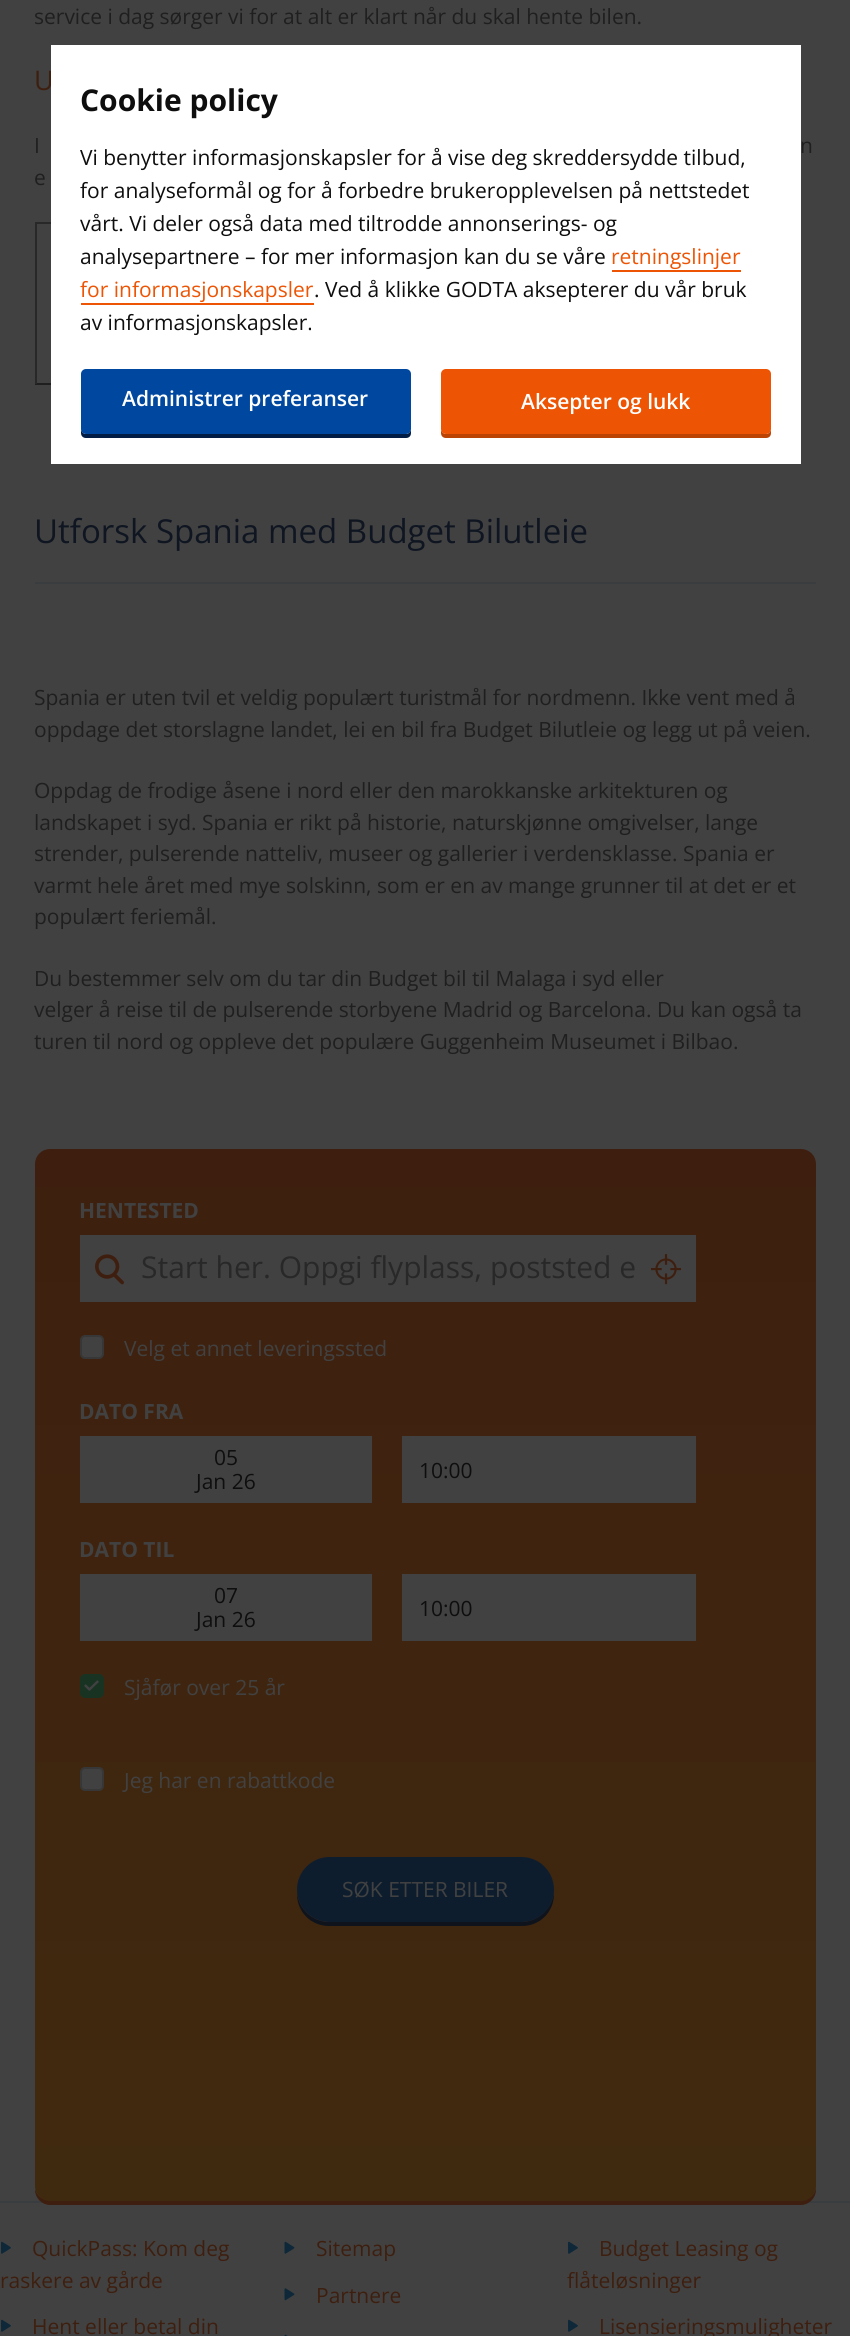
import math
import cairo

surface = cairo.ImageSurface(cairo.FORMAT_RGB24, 850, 2336)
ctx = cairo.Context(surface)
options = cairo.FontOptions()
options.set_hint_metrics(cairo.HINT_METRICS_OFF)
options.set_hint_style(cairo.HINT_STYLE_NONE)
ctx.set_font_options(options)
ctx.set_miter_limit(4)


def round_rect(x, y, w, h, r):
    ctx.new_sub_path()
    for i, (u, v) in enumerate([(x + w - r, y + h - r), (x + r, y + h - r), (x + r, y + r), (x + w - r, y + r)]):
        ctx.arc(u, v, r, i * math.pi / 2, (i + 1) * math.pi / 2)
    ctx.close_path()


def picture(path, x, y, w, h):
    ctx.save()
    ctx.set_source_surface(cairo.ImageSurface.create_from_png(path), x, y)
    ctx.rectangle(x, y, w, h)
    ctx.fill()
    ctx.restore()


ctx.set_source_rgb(0.255, 0.255, 0.255)
ctx.paint()
ctx.select_font_face("Open Sans")
ctx.set_font_size(21)
ctx.set_source_rgb(0.122, 0.122, 0.122)
ctx.move_to(34, 24)
ctx.show_text("service i dag sørger vi for at alt er klart når du skal hente bilen.")
ctx.set_font_size(27)
ctx.set_source_rgb(0.243, 0.122, 0.059)
ctx.move_to(34, 90)
ctx.show_text("U")
ctx.set_font_size(21)
ctx.set_source_rgb(0.122, 0.122, 0.122)
ctx.move_to(34, 153)
ctx.show_text("I")
ctx.move_to(800, 153)
ctx.show_text("n")
ctx.move_to(34, 185)
ctx.show_text("e")
ctx.set_source_rgb(0.157, 0.157, 0.157)
ctx.rectangle(35, 222, 16, 2)
ctx.fill()
ctx.set_source_rgb(0.122, 0.122, 0.122)
ctx.rectangle(35, 383, 16, 2)
ctx.fill()
ctx.set_source_rgb(0.157, 0.157, 0.157)
ctx.rectangle(35, 222, 2, 162)
ctx.fill()
ctx.set_font_size(33)
ctx.set_source_rgb(0.059, 0.086, 0.129)
ctx.move_to(34, 543)
ctx.show_text("Utforsk Spania med Budget Bilutleie")
ctx.set_source_rgb(0.227, 0.239, 0.247)
ctx.rectangle(35, 582, 781, 2)
ctx.fill()
ctx.set_font_size(21)
ctx.set_source_rgb(0.122, 0.122, 0.122)
ctx.move_to(34, 705)
ctx.show_text("Spania er uten tvil et veldig populært turistmål for nordmenn. Ikke vent med å")
ctx.move_to(34, 737)
ctx.show_text("oppdage det storslagne landet, lei en bil fra Budget Bilutleie og legg ut på veien.")
ctx.move_to(34, 798)
ctx.show_text("Oppdag de frodige åsene i nord eller den marokkanske arkitekturen og")
ctx.move_to(34, 830)
ctx.show_text("landskapet i syd. Spania er rikt på historie, naturskjønne omgivelser, lange")
ctx.move_to(34, 861)
ctx.show_text("strender, pulserende natteliv, museer og gallerier i verdensklasse. Spania er")
ctx.move_to(34, 893)
ctx.show_text("varmt hele året med mye solskinn, som er en av mange grunner til at det er et")
ctx.move_to(34, 924)
ctx.show_text("populært feriemål.")
ctx.move_to(34, 986)
ctx.show_text("Du bestemmer selv om du tar din Budget bil til Malaga i syd eller")
ctx.move_to(34, 1017)
ctx.show_text("velger å reise til de pulserende storbyene Madrid og Barcelona. Du kan også ta")
ctx.move_to(34, 1049)
ctx.show_text("turen til nord og oppleve det populære Guggenheim Museumet i Bilbao.")
ctx.set_source_rgb(0.227, 0.239, 0.247)
ctx.rectangle(0, 2201, 850, 2)
ctx.fill()
ctx.set_source_rgb(0.243, 0.122, 0.059)
ctx.new_path()
ctx.move_to(35, 2189)
ctx.line_to(35, 2190)
ctx.curve_to(35, 2198, 42, 2205, 50, 2205)
ctx.line_to(801, 2205)
ctx.curve_to(809, 2205, 816, 2198, 816, 2190)
ctx.line_to(816, 2186)
ctx.curve_to(816, 2194, 809, 2200, 801, 2200)
ctx.line_to(50, 2200)
ctx.curve_to(43, 2200, 37, 2196, 35, 2189)
ctx.close_path()
ctx.fill()
gradient = cairo.LinearGradient(425, 1149, 425, 2201)
gradient.add_color_stop_rgba(0, 0.243, 0.122, 0.059, 1)
gradient.add_color_stop_rgba(1, 0.251, 0.165, 0.059, 1)
ctx.set_source(gradient)
round_rect(35, 1149, 781, 1052, 15)
ctx.fill()
ctx.select_font_face("Open Sans", cairo.FONT_SLANT_NORMAL, cairo.FONT_WEIGHT_BOLD)
ctx.set_source_rgb(0.255, 0.255, 0.255)
ctx.move_to(79, 1218)
ctx.show_text("HENTESTED")
ctx.rectangle(80, 1235, 616, 67)
ctx.fill()
picture("img1.png", 95, 1254, 29, 31)
ctx.select_font_face("Open Sans")
ctx.set_font_size(30)
ctx.set_source_rgb(0.157, 0.157, 0.157)
ctx.move_to(141, 1278)
ctx.show_text("Start her. Oppgi flyplass, poststed e")
picture("img2.png", 651, 1254, 31, 31)
ctx.set_source_rgb(0.255, 0.255, 0.255)
round_rect(81, 1336, 22, 22, 4)
ctx.fill_preserve()
ctx.set_source_rgb(0.212, 0.216, 0.212)
ctx.stroke()
ctx.set_font_size(21)
ctx.set_source_rgb(0.255, 0.255, 0.255)
ctx.move_to(124, 1356)
ctx.show_text("Velg et annet leveringssted")
ctx.select_font_face("Open Sans", cairo.FONT_SLANT_NORMAL, cairo.FONT_WEIGHT_BOLD)
ctx.move_to(79, 1419)
ctx.show_text("DATO FRA")
ctx.rectangle(80, 1436, 292, 67)
ctx.fill()
ctx.select_font_face("Open Sans")
ctx.set_source_rgb(0.055, 0.055, 0.055)
ctx.move_to(214, 1465)
ctx.show_text("05")
ctx.move_to(196, 1489)
ctx.show_text("Jan 26")
ctx.set_source_rgb(0.255, 0.255, 0.255)
ctx.rectangle(402, 1436, 294, 67)
ctx.fill()
ctx.set_source_rgb(0.055, 0.055, 0.055)
ctx.move_to(419, 1478)
ctx.show_text("10:00")
ctx.select_font_face("Open Sans", cairo.FONT_SLANT_NORMAL, cairo.FONT_WEIGHT_BOLD)
ctx.set_source_rgb(0.255, 0.255, 0.255)
ctx.move_to(79, 1557)
ctx.show_text("DATO TIL")
ctx.rectangle(80, 1574, 292, 67)
ctx.fill()
ctx.select_font_face("Open Sans")
ctx.set_source_rgb(0.055, 0.055, 0.055)
ctx.move_to(214, 1603)
ctx.show_text("07")
ctx.move_to(196, 1627)
ctx.show_text("Jan 26")
ctx.set_source_rgb(0.255, 0.255, 0.255)
ctx.rectangle(402, 1574, 294, 67)
ctx.fill()
ctx.set_source_rgb(0.055, 0.055, 0.055)
ctx.move_to(419, 1616)
ctx.show_text("10:00")
ctx.set_source_rgb(0.094, 0.2, 0.133)
round_rect(81, 1675, 22, 22, 4)
ctx.fill_preserve()
ctx.stroke()
ctx.set_source_rgb(0.255, 0.255, 0.255)
ctx.move_to(124, 1695)
ctx.show_text("Sjåfør over 25 år")
picture("img3.png", 84, 1680, 15, 11)
round_rect(81, 1768, 22, 22, 4)
ctx.fill_preserve()
ctx.set_source_rgb(0.212, 0.216, 0.212)
ctx.stroke()
ctx.set_source_rgb(0.255, 0.255, 0.255)
ctx.move_to(124, 1788)
ctx.show_text("Jeg har en rabattkode")
ctx.set_source_rgb(0.059, 0.078, 0.11)
ctx.new_path()
ctx.move_to(297, 1892)
ctx.line_to(297, 1894)
ctx.curve_to(297, 1912, 311, 1926, 329, 1926)
ctx.line_to(522, 1926)
ctx.curve_to(540, 1926, 554, 1912, 554, 1894)
ctx.line_to(553, 1888)
ctx.line_to(554, 1889)
ctx.curve_to(554, 1907, 539, 1922, 521, 1922)
ctx.line_to(329, 1922)
ctx.curve_to(312, 1922, 298, 1908, 297, 1892)
ctx.close_path()
ctx.fill()
ctx.set_source_rgb(0.055, 0.114, 0.18)
round_rect(297, 1857, 257, 65, 32.5)
ctx.fill()
ctx.set_source_rgb(0.255, 0.255, 0.255)
ctx.move_to(342, 1897)
ctx.show_text("SØK ETTER BILER")
picture("img4.png", 1, 2241, 10, 13)
ctx.set_source_rgb(0.243, 0.122, 0.059)
ctx.move_to(32, 2256)
ctx.show_text("QuickPass: Kom deg")
ctx.move_to(0, 2288)
ctx.show_text("raskere av gårde")
picture("img5.png", 284, 2241, 11, 13)
ctx.move_to(316, 2256)
ctx.show_text("Sitemap")
picture("img4.png", 568, 2241, 10, 13)
ctx.move_to(599, 2256)
ctx.show_text("Budget Leasing og")
ctx.move_to(567, 2288)
ctx.show_text("flåteløsninger")
picture("img6.png", 284, 2288, 11, 13)
ctx.move_to(316, 2303)
ctx.show_text("Partnere")
picture("img4.png", 1, 2319, 10, 13)
ctx.move_to(32, 2334)
ctx.show_text("Hent eller betal din")
picture("img7.png", 284, 2334, 4, 2)
picture("img4.png", 568, 2319, 10, 13)
ctx.move_to(599, 2334)
ctx.show_text("Lisensieringsmuligheter")
ctx.set_source_rgb(1, 1, 1)
ctx.rectangle(51, 45, 750, 419)
ctx.fill()
ctx.select_font_face("Open Sans", cairo.FONT_SLANT_NORMAL, cairo.FONT_WEIGHT_BOLD)
ctx.set_font_size(30)
ctx.set_source_rgb(0.055, 0.055, 0.055)
ctx.move_to(80, 111)
ctx.show_text("Cookie policy")
ctx.select_font_face("Open Sans")
ctx.set_font_size(21)
ctx.move_to(80, 165)
ctx.show_text("Vi benytter informasjonskapsler for å vise deg skreddersydde tilbud,")
ctx.move_to(80, 198)
ctx.show_text("for analyseformål og for å forbedre brukeropplevelsen på nettstedet")
ctx.move_to(80, 231)
ctx.show_text("vårt. Vi deler også data med tiltrodde annonserings- og")
ctx.move_to(80, 264)
ctx.show_text("analysepartnere – for mer informasjon kan du se våre")
ctx.set_source_rgb(0.929, 0.333, 0.02)
ctx.move_to(611, 264)
ctx.show_text("retningslinjer")
ctx.rectangle(612, 270, 129, 2)
ctx.fill()
ctx.move_to(80, 297)
ctx.show_text("for informasjonskapsler")
ctx.rectangle(81, 303, 233, 2)
ctx.fill()
ctx.set_source_rgb(0.055, 0.055, 0.055)
ctx.move_to(314, 297)
ctx.show_text(". Ved å klikke GODTA aksepterer du vår bruk")
ctx.move_to(80, 330)
ctx.show_text("av informasjonskapsler.")
ctx.set_source_rgb(0.004, 0.114, 0.275)
ctx.new_path()
ctx.move_to(81, 429)
ctx.line_to(81, 433)
ctx.curve_to(81, 436, 83, 438, 86, 438)
ctx.line_to(406, 438)
ctx.curve_to(409, 438, 411, 436, 411, 433)
ctx.line_to(411, 429)
ctx.curve_to(411, 431, 409, 434, 406, 434)
ctx.line_to(86, 434)
ctx.curve_to(83, 434, 81, 431, 81, 429)
ctx.close_path()
ctx.fill()
ctx.set_source_rgb(0, 0.282, 0.624)
round_rect(81, 369, 330, 65, 5)
ctx.fill()
ctx.select_font_face("Open Sans SemiBold")
ctx.set_source_rgb(1, 1, 1)
ctx.move_to(122, 406)
ctx.show_text("Administrer preferanser")
ctx.set_source_rgb(0.733, 0.263, 0.016)
ctx.new_path()
ctx.move_to(441, 429)
ctx.line_to(441, 433)
ctx.curve_to(441, 436, 443, 438, 446, 438)
ctx.line_to(766, 438)
ctx.curve_to(769, 438, 771, 436, 771, 433)
ctx.line_to(771, 429)
ctx.curve_to(771, 431, 769, 434, 766, 434)
ctx.line_to(446, 434)
ctx.curve_to(443, 434, 441, 431, 441, 429)
ctx.close_path()
ctx.fill()
ctx.set_source_rgb(0.929, 0.333, 0.02)
round_rect(441, 369, 330, 65, 5)
ctx.fill()
ctx.set_source_rgb(1, 1, 1)
ctx.move_to(521, 409)
ctx.show_text("Aksepter og lukk")
surface.write_to_png("page.png")
